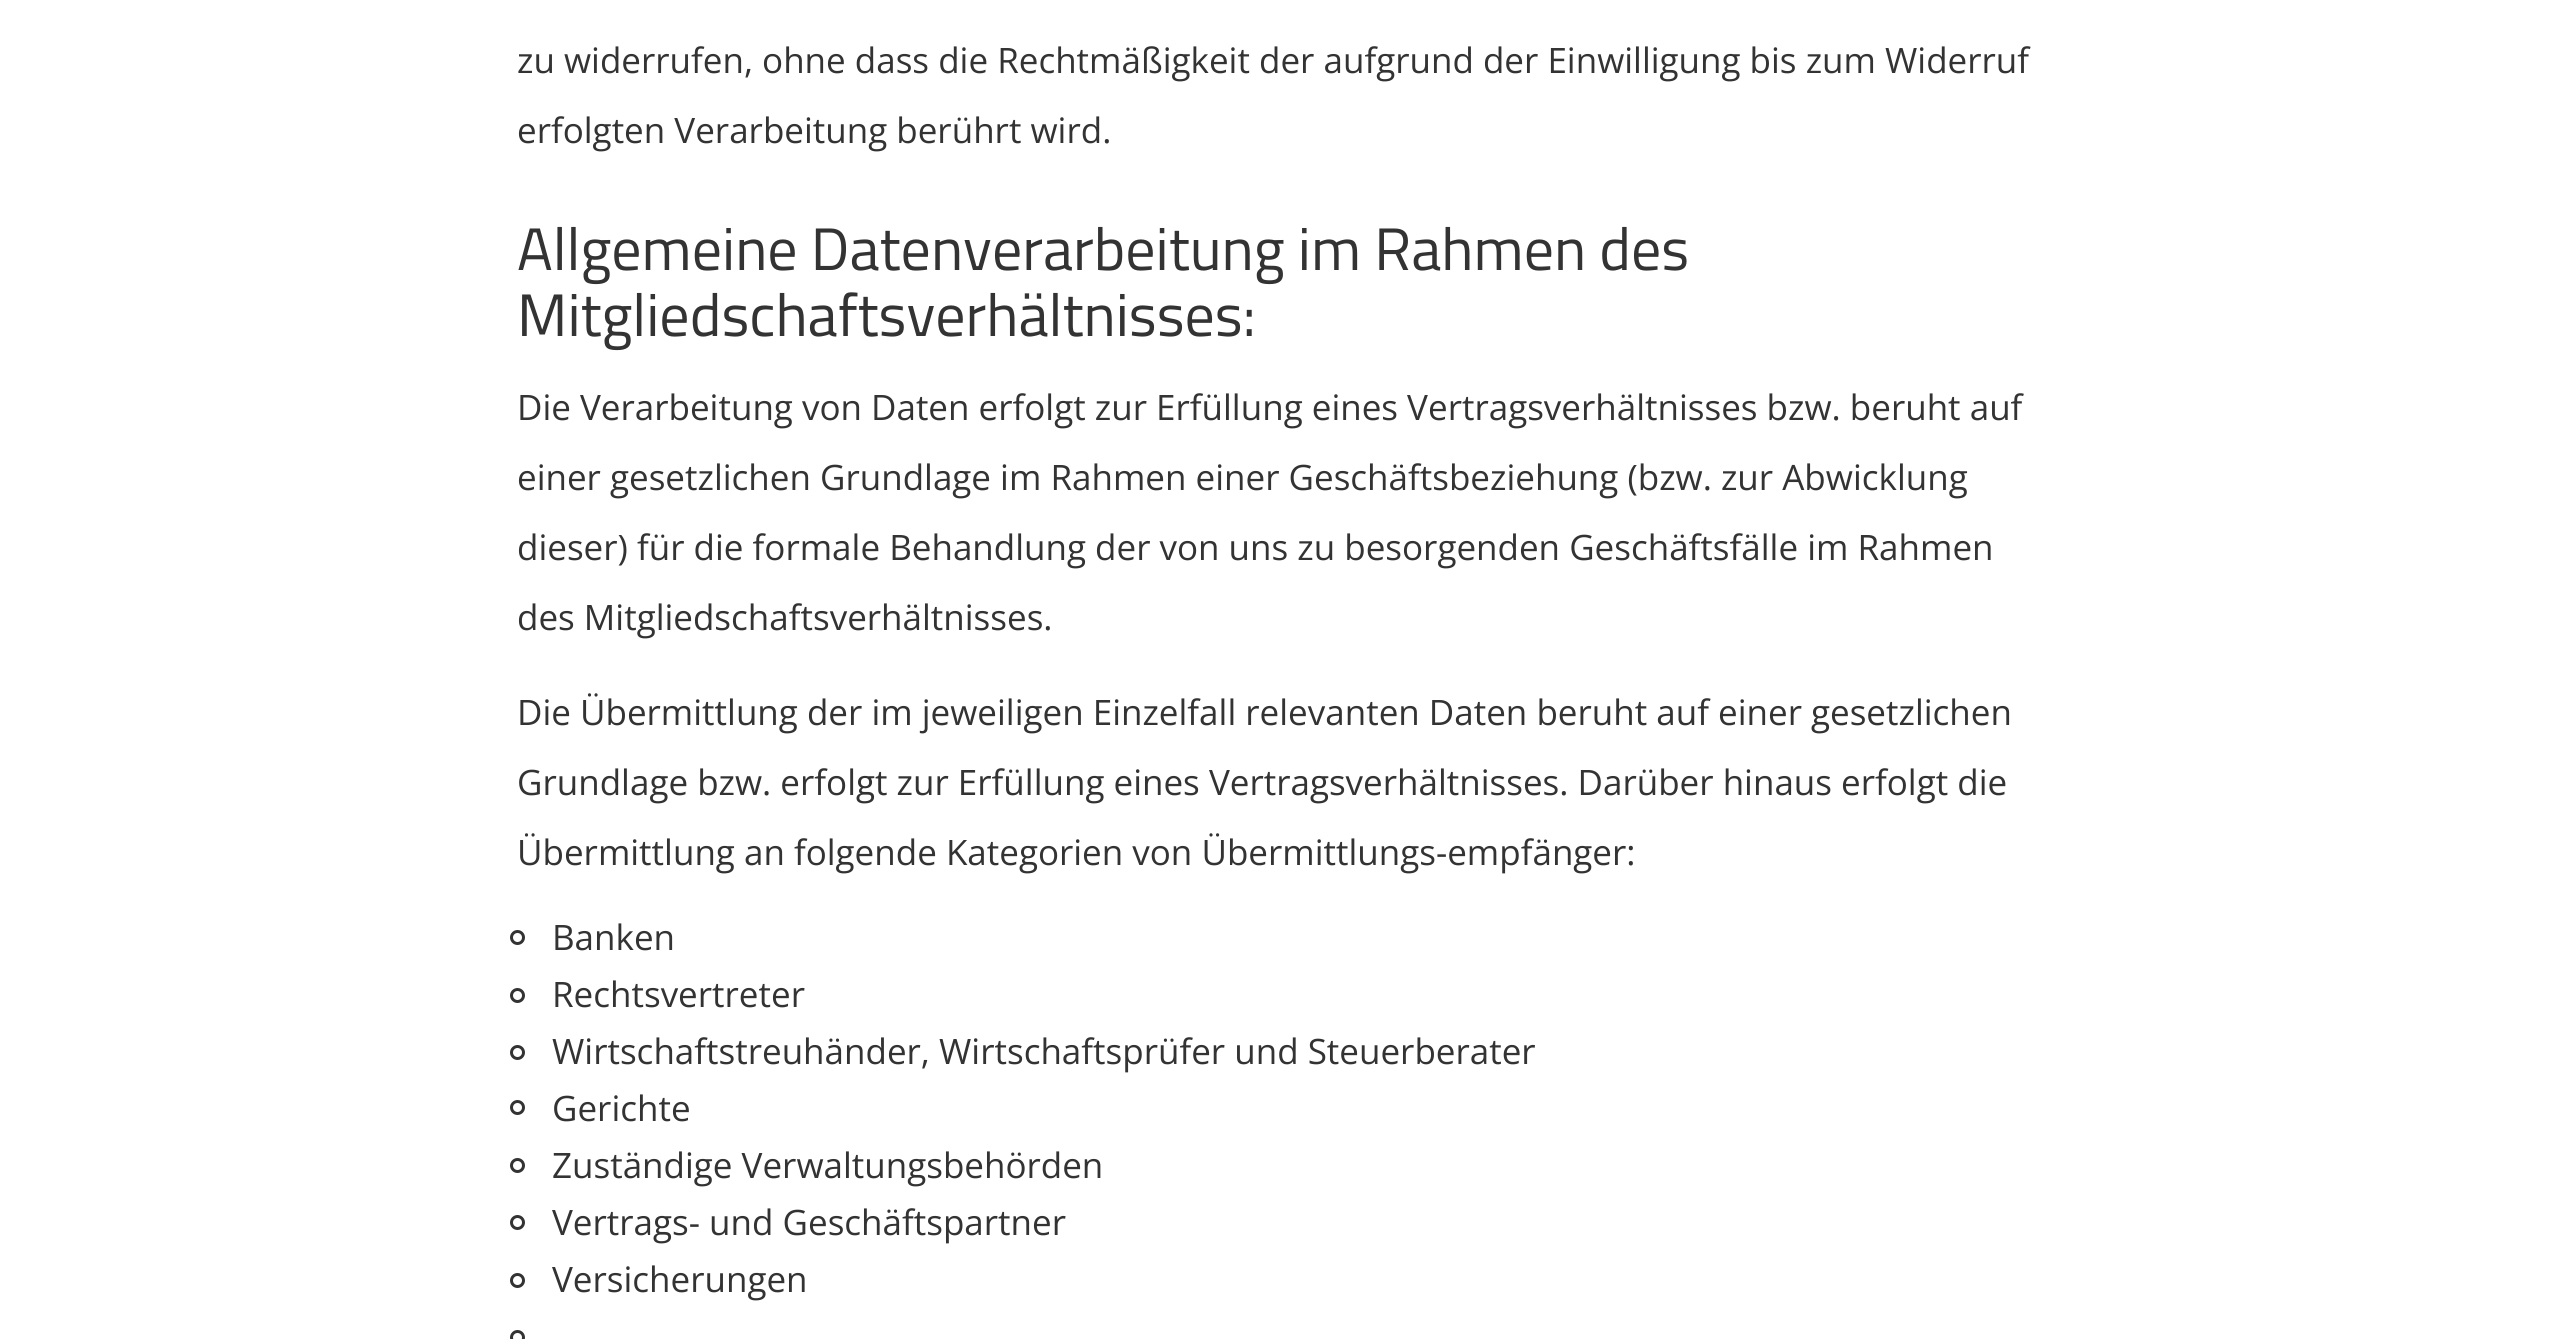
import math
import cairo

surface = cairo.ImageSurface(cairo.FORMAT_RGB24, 2575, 1339)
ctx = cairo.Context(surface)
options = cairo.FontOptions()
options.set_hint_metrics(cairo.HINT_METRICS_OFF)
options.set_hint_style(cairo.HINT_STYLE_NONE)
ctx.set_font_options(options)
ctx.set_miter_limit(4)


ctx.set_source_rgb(1, 1, 1)
ctx.paint()
ctx.select_font_face("Open Sans")
ctx.set_font_size(35)
ctx.set_source_rgb(0.2, 0.2, 0.2)
ctx.move_to(517, 73)
ctx.show_text("zu widerrufen, ohne dass die Rechtmäßigkeit der aufgrund der Einwilligung bis zum Widerruf")
ctx.move_to(517, 143)
ctx.show_text("erfolgten Verarbeitung berührt wird.")
ctx.select_font_face("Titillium")
ctx.set_font_size(60)
ctx.move_to(517, 270)
ctx.show_text("Allgemeine Datenverarbeitung im Rahmen des")
ctx.move_to(517, 336)
ctx.show_text("Mitgliedschaftsverhältnisses:")
ctx.select_font_face("Open Sans")
ctx.set_font_size(35)
ctx.move_to(517, 420)
ctx.show_text("Die Verarbeitung von Daten erfolgt zur Erfüllung eines Vertragsverhältnisses bzw. beruht auf")
ctx.move_to(517, 490)
ctx.show_text("einer gesetzlichen Grundlage im Rahmen einer Geschäftsbeziehung (bzw. zur Abwicklung")
ctx.move_to(517, 560)
ctx.show_text("dieser) für die formale Behandlung der von uns zu besorgenden Geschäftsfälle im Rahmen")
ctx.move_to(517, 630)
ctx.show_text("des Mitgliedschaftsverhältnisses.")
ctx.move_to(517, 725)
ctx.show_text("Die Übermittlung der im jeweiligen Einzelfall relevanten Daten beruht auf einer gesetzlichen")
ctx.move_to(517, 795)
ctx.show_text("Grundlage bzw. erfolgt zur Erfüllung eines Vertragsverhältnisses. Darüber hinaus erfolgt die")
ctx.move_to(517, 865)
ctx.show_text("Übermittlung an folgende Kategorien von Übermittlungs-empfänger:")
ctx.new_path()
ctx.arc(517.5, 937.5, 6, 0, 2 * math.pi)
ctx.set_line_width(3)
ctx.stroke()
ctx.move_to(552, 950)
ctx.show_text("Banken")
ctx.new_path()
ctx.arc(517.5, 995.5, 6, 0, 2 * math.pi)
ctx.stroke()
ctx.move_to(552, 1007)
ctx.show_text("Rechtsvertreter")
ctx.new_path()
ctx.arc(517.5, 1052.5, 6, 0, 2 * math.pi)
ctx.stroke()
ctx.move_to(552, 1064)
ctx.show_text("Wirtschaftstreuhänder, Wirtschaftsprüfer und Steuerberater")
ctx.new_path()
ctx.arc(517.5, 1107.5, 6, 0, 2 * math.pi)
ctx.stroke()
ctx.move_to(552, 1121)
ctx.show_text("Gerichte")
ctx.new_path()
ctx.arc(517.5, 1165.5, 6, 0, 2 * math.pi)
ctx.stroke()
ctx.move_to(552, 1178)
ctx.show_text("Zuständige Verwaltungsbehörden")
ctx.new_path()
ctx.arc(517.5, 1222.5, 6, 0, 2 * math.pi)
ctx.stroke()
ctx.move_to(552, 1235)
ctx.show_text("Vertrags- und Geschäftspartner")
ctx.new_path()
ctx.arc(517.5, 1280.5, 6, 0, 2 * math.pi)
ctx.stroke()
ctx.move_to(552, 1292)
ctx.show_text("Versicherungen")
ctx.new_path()
ctx.arc(517.5, 1337.5, 6, 0, 2 * math.pi)
ctx.stroke()
surface.write_to_png("page.png")
